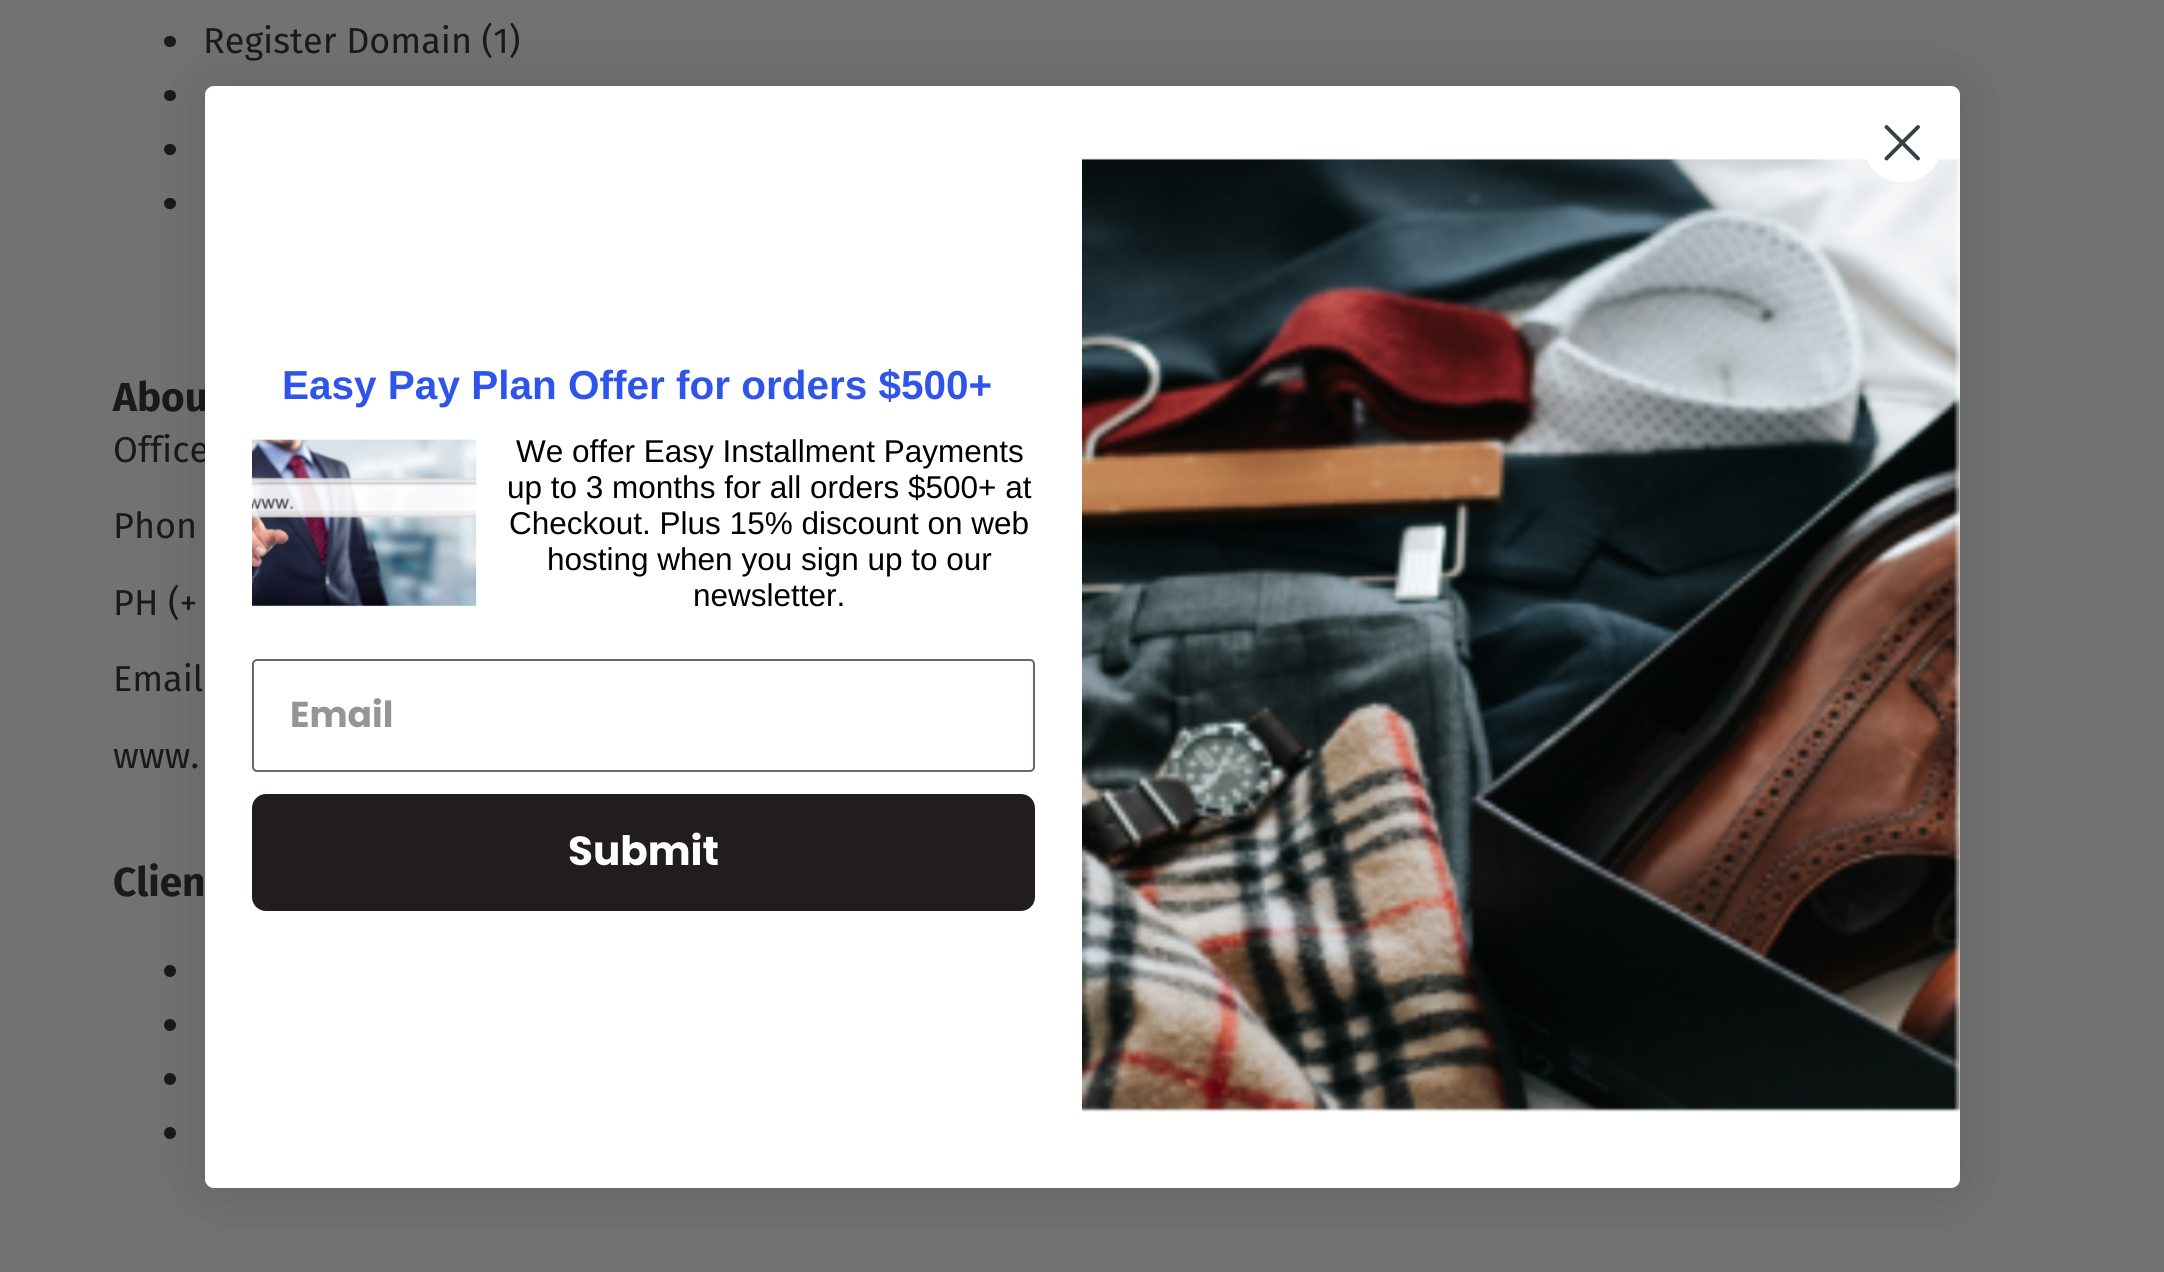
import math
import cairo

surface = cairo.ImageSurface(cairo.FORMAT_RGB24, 2164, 1272)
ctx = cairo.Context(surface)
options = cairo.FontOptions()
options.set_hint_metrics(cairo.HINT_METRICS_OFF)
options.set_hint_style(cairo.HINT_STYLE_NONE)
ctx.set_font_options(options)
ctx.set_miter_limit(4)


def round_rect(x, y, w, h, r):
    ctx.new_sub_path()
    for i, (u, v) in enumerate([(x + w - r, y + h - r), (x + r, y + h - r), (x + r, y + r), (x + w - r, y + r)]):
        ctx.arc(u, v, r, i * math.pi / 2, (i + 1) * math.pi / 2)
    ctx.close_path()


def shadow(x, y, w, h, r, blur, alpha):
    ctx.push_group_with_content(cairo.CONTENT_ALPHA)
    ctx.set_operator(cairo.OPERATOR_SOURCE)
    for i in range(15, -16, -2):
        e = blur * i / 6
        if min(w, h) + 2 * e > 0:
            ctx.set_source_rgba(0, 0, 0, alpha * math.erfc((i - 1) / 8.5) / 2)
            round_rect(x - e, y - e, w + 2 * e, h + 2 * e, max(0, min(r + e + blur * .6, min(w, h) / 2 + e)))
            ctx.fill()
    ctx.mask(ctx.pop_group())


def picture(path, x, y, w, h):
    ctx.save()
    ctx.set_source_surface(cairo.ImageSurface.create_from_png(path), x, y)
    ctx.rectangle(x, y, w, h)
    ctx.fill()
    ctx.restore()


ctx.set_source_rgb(0.447, 0.447, 0.447)
ctx.paint()
ctx.set_source_rgb(0.102, 0.102, 0.102)
round_rect(164, 36, 12, 11, 5.5)
ctx.fill()
ctx.select_font_face("Fira Sans")
ctx.set_font_size(36)
ctx.move_to(203, 53)
ctx.show_text("Register Domain (1)")
round_rect(164, 90, 12, 11, 5.5)
ctx.fill()
round_rect(164, 144, 12, 11, 5.5)
ctx.fill()
round_rect(164, 198, 12, 11, 5.5)
ctx.fill()
ctx.select_font_face("Fira Sans", cairo.FONT_SLANT_NORMAL, cairo.FONT_WEIGHT_BOLD)
ctx.set_font_size(40.5)
ctx.move_to(113, 411)
ctx.show_text("Abou")
ctx.select_font_face("Fira Sans")
ctx.set_font_size(36)
ctx.move_to(113, 462)
ctx.show_text("Office")
ctx.move_to(113, 538)
ctx.show_text("Phon")
ctx.move_to(113, 615)
ctx.show_text("PH (+")
ctx.move_to(113, 691)
ctx.show_text("Email")
ctx.move_to(113, 768)
ctx.show_text("www.")
ctx.select_font_face("Fira Sans", cairo.FONT_SLANT_NORMAL, cairo.FONT_WEIGHT_BOLD)
ctx.set_font_size(40.5)
ctx.move_to(113, 896)
ctx.show_text("Clien")
ctx.new_path()
ctx.arc(170, 971, 6, 0, 2 * math.pi)
ctx.fill()
ctx.arc(170, 1025, 6, 0, 2 * math.pi)
ctx.fill()
ctx.arc(170, 1079, 6, 0, 2 * math.pi)
ctx.fill()
ctx.arc(170, 1133, 6, 0, 2 * math.pi)
ctx.fill()
ctx.set_source_rgb(0, 0, 0)
shadow(205, 86, 1755, 1102, 9, 34, 0.15)
ctx.set_source_rgb(1, 1, 1)
round_rect(205, 86, 1755, 1102, 9)
ctx.fill()
picture("img2.png", 1082, 158, 878, 954)
ctx.arc(1902.5, 143, 37.5, 0, 2 * math.pi)
ctx.fill_preserve()
ctx.set_line_width(3.9)
ctx.stroke()
ctx.new_path()
ctx.move_to(1886.5, 127)
ctx.line_to(1918, 158.5)
ctx.move_to(1886.5, 158.5)
ctx.line_to(1918, 127)
ctx.close_path()
ctx.set_source_rgb(0.216, 0.247, 0.278)
ctx.set_line_cap(cairo.LINE_CAP_ROUND)
ctx.set_line_join(cairo.LINE_JOIN_ROUND)
ctx.stroke()
ctx.select_font_face("Liberation Sans", cairo.FONT_SLANT_NORMAL, cairo.FONT_WEIGHT_BOLD)
ctx.set_source_rgb(0.18, 0.329, 0.925)
ctx.move_to(282, 399)
ctx.show_text("Easy Pay Plan Offer for orders $500+")
picture("img1.png", 252, 439, 225, 168)
ctx.select_font_face("Liberation Sans")
ctx.set_font_size(31.5)
ctx.set_source_rgb(0, 0, 0)
ctx.move_to(516, 462)
ctx.show_text("We offer Easy Installment Payments")
ctx.move_to(507, 498)
ctx.show_text("up to 3 months for all orders $500+ at")
ctx.move_to(509, 534)
ctx.show_text("Checkout. Plus 15% discount on web")
ctx.move_to(547, 570)
ctx.show_text("hosting when you sign up to our")
ctx.move_to(693, 606)
ctx.show_text("newsletter.")
round_rect(253, 660, 781, 111, 4)
ctx.set_source_rgb(0.376, 0.416, 0.447)
ctx.set_line_width(2)
ctx.set_line_cap(cairo.LINE_CAP_BUTT)
ctx.set_line_join(cairo.LINE_JOIN_MITER)
ctx.stroke()
ctx.select_font_face("Poppins", cairo.FONT_SLANT_NORMAL, cairo.FONT_WEIGHT_BOLD)
ctx.set_font_size(36)
ctx.set_source_rgb(0.58, 0.584, 0.588)
ctx.move_to(290, 727)
ctx.show_text("Email")
ctx.set_source_rgb(0.129, 0.114, 0.11)
round_rect(259, 801, 769, 103, 7)
ctx.fill_preserve()
ctx.set_line_width(14)
ctx.stroke()
ctx.set_font_size(40.5)
ctx.set_source_rgb(1, 1, 1)
ctx.move_to(568, 865)
ctx.show_text("Submit")
surface.write_to_png("page.png")
